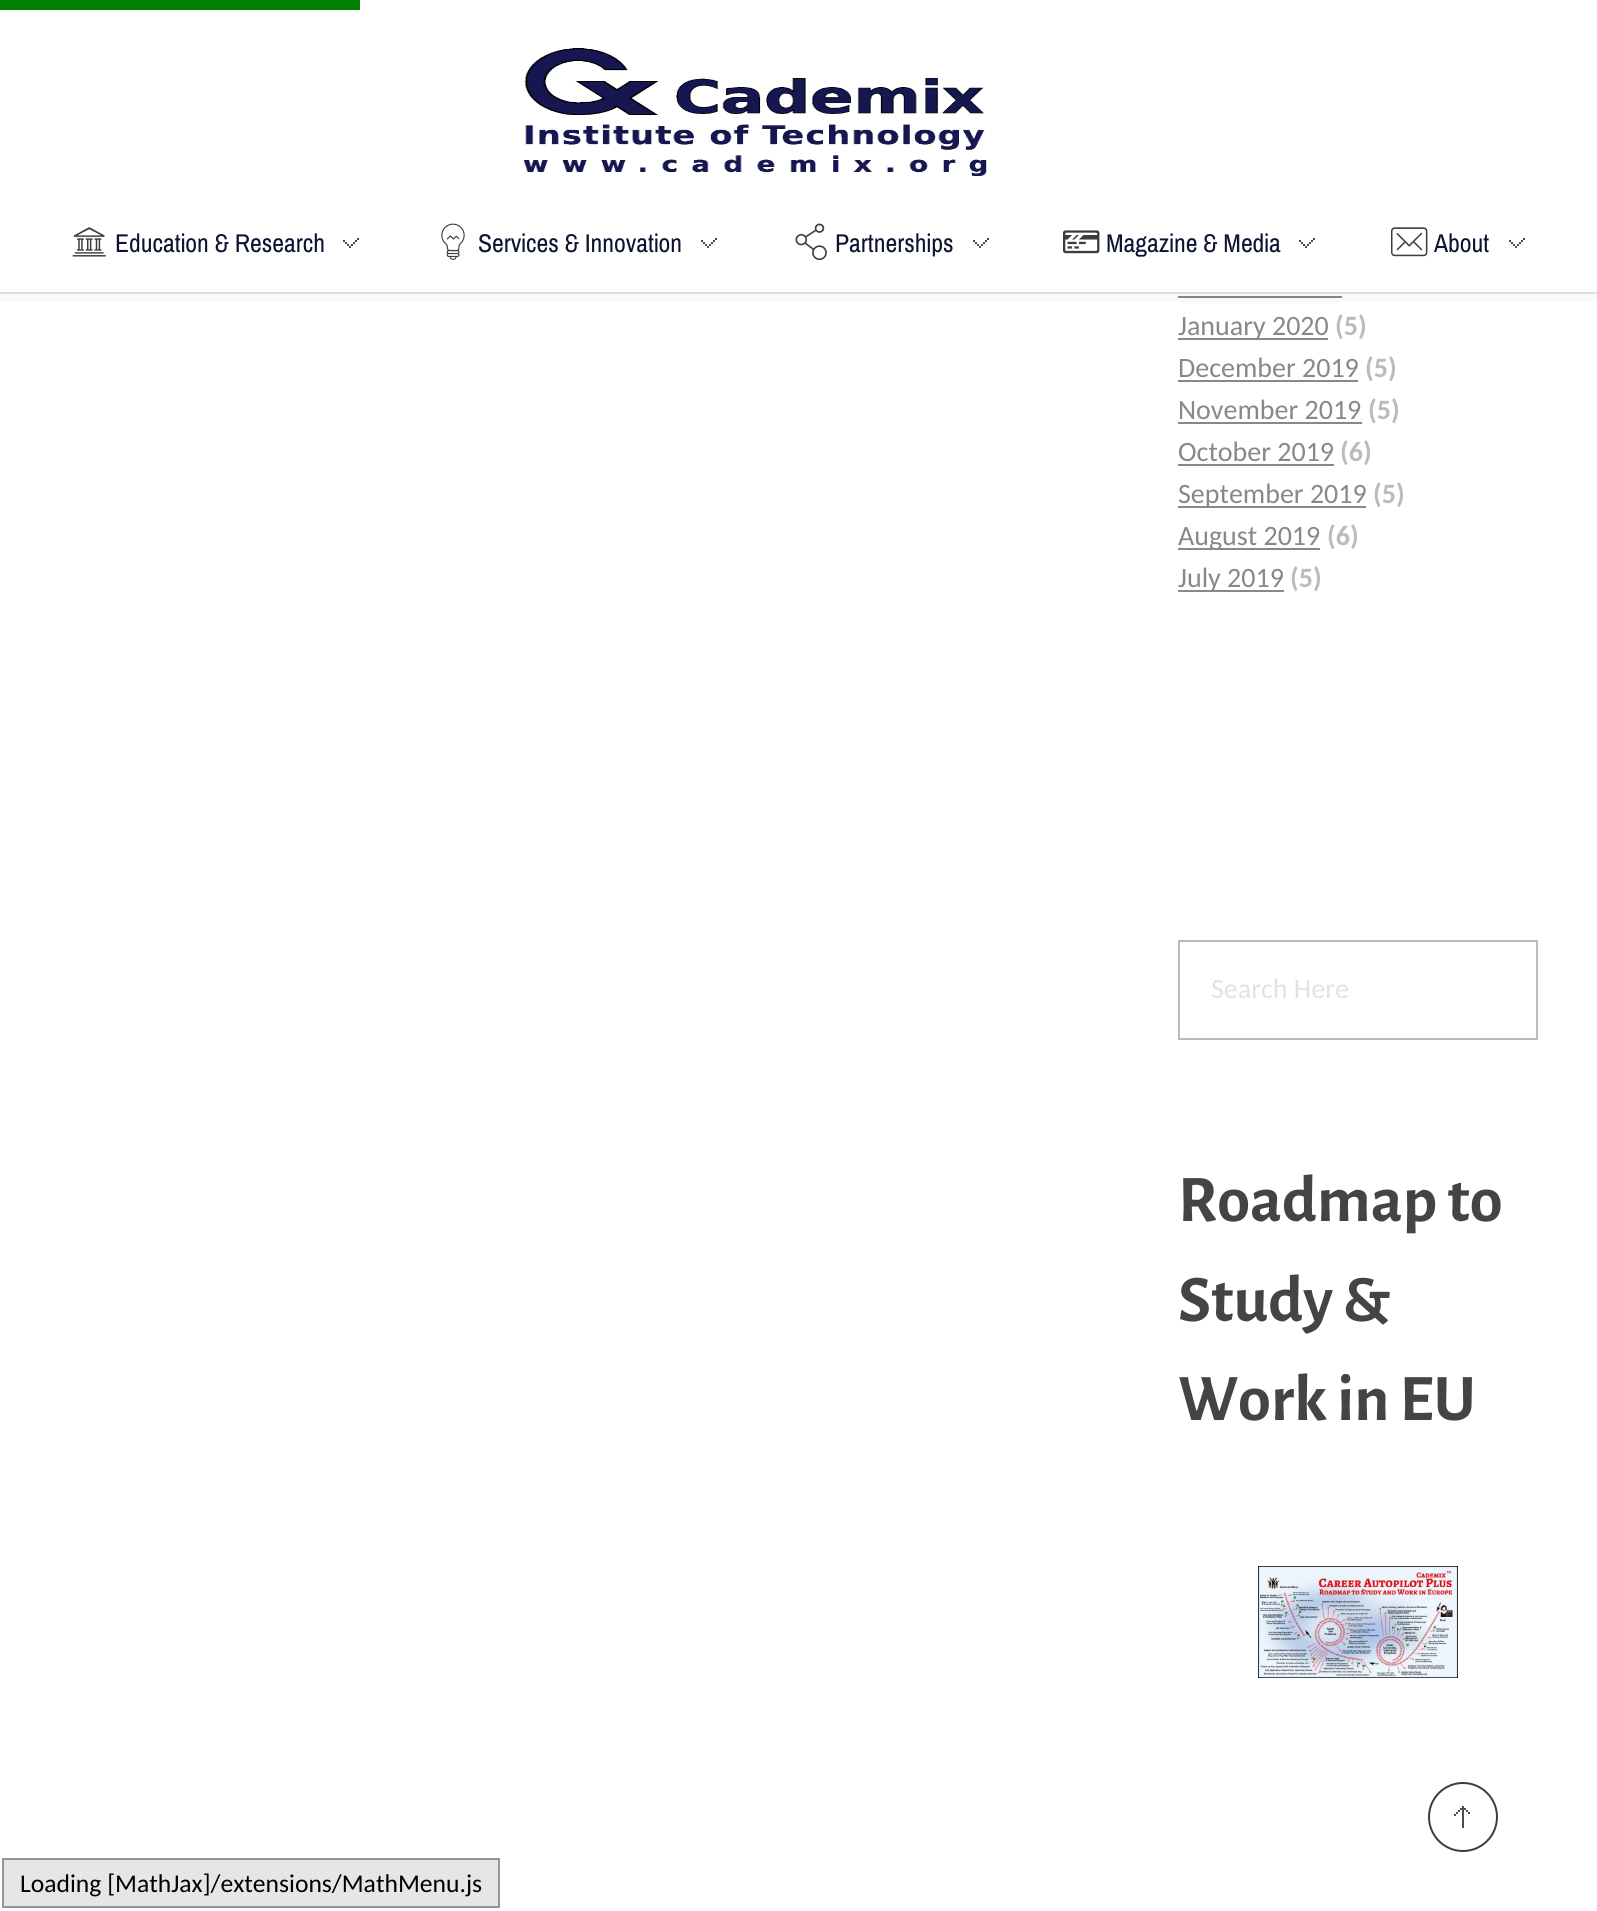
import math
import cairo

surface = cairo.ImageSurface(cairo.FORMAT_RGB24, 1597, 1911)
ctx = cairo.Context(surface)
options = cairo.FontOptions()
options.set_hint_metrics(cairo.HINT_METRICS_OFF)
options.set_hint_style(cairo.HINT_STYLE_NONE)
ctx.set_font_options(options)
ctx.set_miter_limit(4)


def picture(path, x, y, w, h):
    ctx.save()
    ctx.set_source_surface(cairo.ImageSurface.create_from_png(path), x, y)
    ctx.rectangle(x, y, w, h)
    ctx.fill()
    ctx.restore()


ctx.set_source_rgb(1, 1, 1)
ctx.paint()
ctx.set_source_rgb(0, 0.502, 0)
ctx.rectangle(0, 0, 360, 10)
ctx.fill()
ctx.set_source_rgb(0.533, 0.533, 0.533)
ctx.rectangle(1178, 296, 164, 2)
ctx.fill()
ctx.set_source_rgba(0.133, 0.133, 0.133, 0.03)
ctx.rectangle(0, 294, 1597, 8)
ctx.fill()
ctx.set_source_rgb(0.871, 0.871, 0.871)
ctx.rectangle(0, 292, 1597, 2)
ctx.fill()
picture("img1.png", 523, 48, 464, 128)
picture("img2.png", 72, 227, 34, 30)
ctx.select_font_face("Pragati Narrow")
ctx.set_font_size(28)
ctx.set_source_rgb(0.055, 0.075, 0.204)
ctx.move_to(115, 252)
ctx.show_text("Education & Research")
picture("img3.png", 343, 238, 16, 10)
picture("img4.png", 441, 223, 24, 37)
ctx.move_to(478, 252)
ctx.show_text("Services & Innovation")
picture("img3.png", 701, 238, 16, 10)
picture("img5.png", 795, 223, 32, 38)
ctx.move_to(835, 252)
ctx.show_text("Partnerships")
picture("img3.png", 973, 238, 16, 10)
picture("img6.png", 1063, 230, 37, 24)
ctx.move_to(1106, 252)
ctx.show_text("Magazine & Media")
picture("img3.png", 1299, 238, 16, 10)
picture("img7.png", 1391, 227, 37, 30)
ctx.move_to(1434, 252)
ctx.show_text("About")
picture("img3.png", 1509, 238, 16, 10)
ctx.set_source_rgb(0.533, 0.533, 0.533)
ctx.rectangle(1178, 338, 150, 2)
ctx.fill()
ctx.select_font_face("Carlito")
ctx.move_to(1178, 335)
ctx.show_text("January 2020")
ctx.select_font_face("Carlito", cairo.FONT_SLANT_NORMAL, cairo.FONT_WEIGHT_BOLD)
ctx.set_source_rgb(0.733, 0.733, 0.733)
ctx.move_to(1335, 335)
ctx.show_text("(5)")
ctx.select_font_face("Carlito")
ctx.set_source_rgb(0.533, 0.533, 0.533)
ctx.move_to(1178, 377)
ctx.show_text("December 2019")
ctx.rectangle(1178, 380, 180, 2)
ctx.fill()
ctx.select_font_face("Carlito", cairo.FONT_SLANT_NORMAL, cairo.FONT_WEIGHT_BOLD)
ctx.set_source_rgb(0.733, 0.733, 0.733)
ctx.move_to(1365, 377)
ctx.show_text("(5)")
ctx.select_font_face("Carlito")
ctx.set_source_rgb(0.533, 0.533, 0.533)
ctx.move_to(1178, 419)
ctx.show_text("November 2019")
ctx.rectangle(1178, 422, 184, 2)
ctx.fill()
ctx.select_font_face("Carlito", cairo.FONT_SLANT_NORMAL, cairo.FONT_WEIGHT_BOLD)
ctx.set_source_rgb(0.733, 0.733, 0.733)
ctx.move_to(1368, 419)
ctx.show_text("(5)")
ctx.select_font_face("Carlito")
ctx.set_source_rgb(0.533, 0.533, 0.533)
ctx.move_to(1178, 461)
ctx.show_text("October 2019")
ctx.rectangle(1178, 464, 156, 2)
ctx.fill()
ctx.select_font_face("Carlito", cairo.FONT_SLANT_NORMAL, cairo.FONT_WEIGHT_BOLD)
ctx.set_source_rgb(0.733, 0.733, 0.733)
ctx.move_to(1340, 461)
ctx.show_text("(6)")
ctx.set_source_rgb(0.533, 0.533, 0.533)
ctx.rectangle(1178, 506, 188, 2)
ctx.fill()
ctx.select_font_face("Carlito")
ctx.move_to(1178, 503)
ctx.show_text("September 2019")
ctx.select_font_face("Carlito", cairo.FONT_SLANT_NORMAL, cairo.FONT_WEIGHT_BOLD)
ctx.set_source_rgb(0.733, 0.733, 0.733)
ctx.move_to(1373, 503)
ctx.show_text("(5)")
ctx.set_source_rgb(0.533, 0.533, 0.533)
ctx.rectangle(1178, 548, 142, 2)
ctx.fill()
ctx.select_font_face("Carlito")
ctx.move_to(1178, 545)
ctx.show_text("August 2019")
ctx.select_font_face("Carlito", cairo.FONT_SLANT_NORMAL, cairo.FONT_WEIGHT_BOLD)
ctx.set_source_rgb(0.733, 0.733, 0.733)
ctx.move_to(1327, 545)
ctx.show_text("(6)")
ctx.set_source_rgb(0.533, 0.533, 0.533)
ctx.rectangle(1178, 590, 106, 2)
ctx.fill()
ctx.select_font_face("Carlito")
ctx.move_to(1178, 587)
ctx.show_text("July 2019")
ctx.select_font_face("Carlito", cairo.FONT_SLANT_NORMAL, cairo.FONT_WEIGHT_BOLD)
ctx.set_source_rgb(0.733, 0.733, 0.733)
ctx.move_to(1290, 587)
ctx.show_text("(5)")
ctx.rectangle(1179, 941, 358, 98)
ctx.stroke()
ctx.select_font_face("Carlito")
ctx.set_source_rgb(0.886, 0.886, 0.886)
ctx.move_to(1211, 998)
ctx.show_text("Search Here")
ctx.select_font_face("Alegreya Sans", cairo.FONT_SLANT_NORMAL, cairo.FONT_WEIGHT_BOLD)
ctx.set_font_size(66.5)
ctx.set_source_rgb(0.267, 0.267, 0.267)
ctx.move_to(1178, 1221)
ctx.show_text("Roadmap to")
ctx.move_to(1178, 1321)
ctx.show_text("Study &")
ctx.move_to(1178, 1420)
ctx.show_text("Work in EU")
picture("img8.png", 1258, 1566, 200, 112)
ctx.arc(1463, 1817, 34, 0, 2 * math.pi)
ctx.set_source_rgb(0.239, 0.239, 0.239)
ctx.stroke()
picture("img9.png", 1454, 1806, 16, 22)
ctx.set_source_rgb(0.902, 0.902, 0.902)
ctx.rectangle(3, 1859, 496, 48)
ctx.fill_preserve()
ctx.set_source_rgb(0.584, 0.584, 0.584)
ctx.stroke()
ctx.select_font_face("Carlito")
ctx.set_font_size(25.6)
ctx.set_source_rgb(0, 0, 0)
ctx.move_to(20, 1892)
ctx.show_text("Loading [MathJax]/extensions/MathMenu.js")
surface.write_to_png("page.png")
